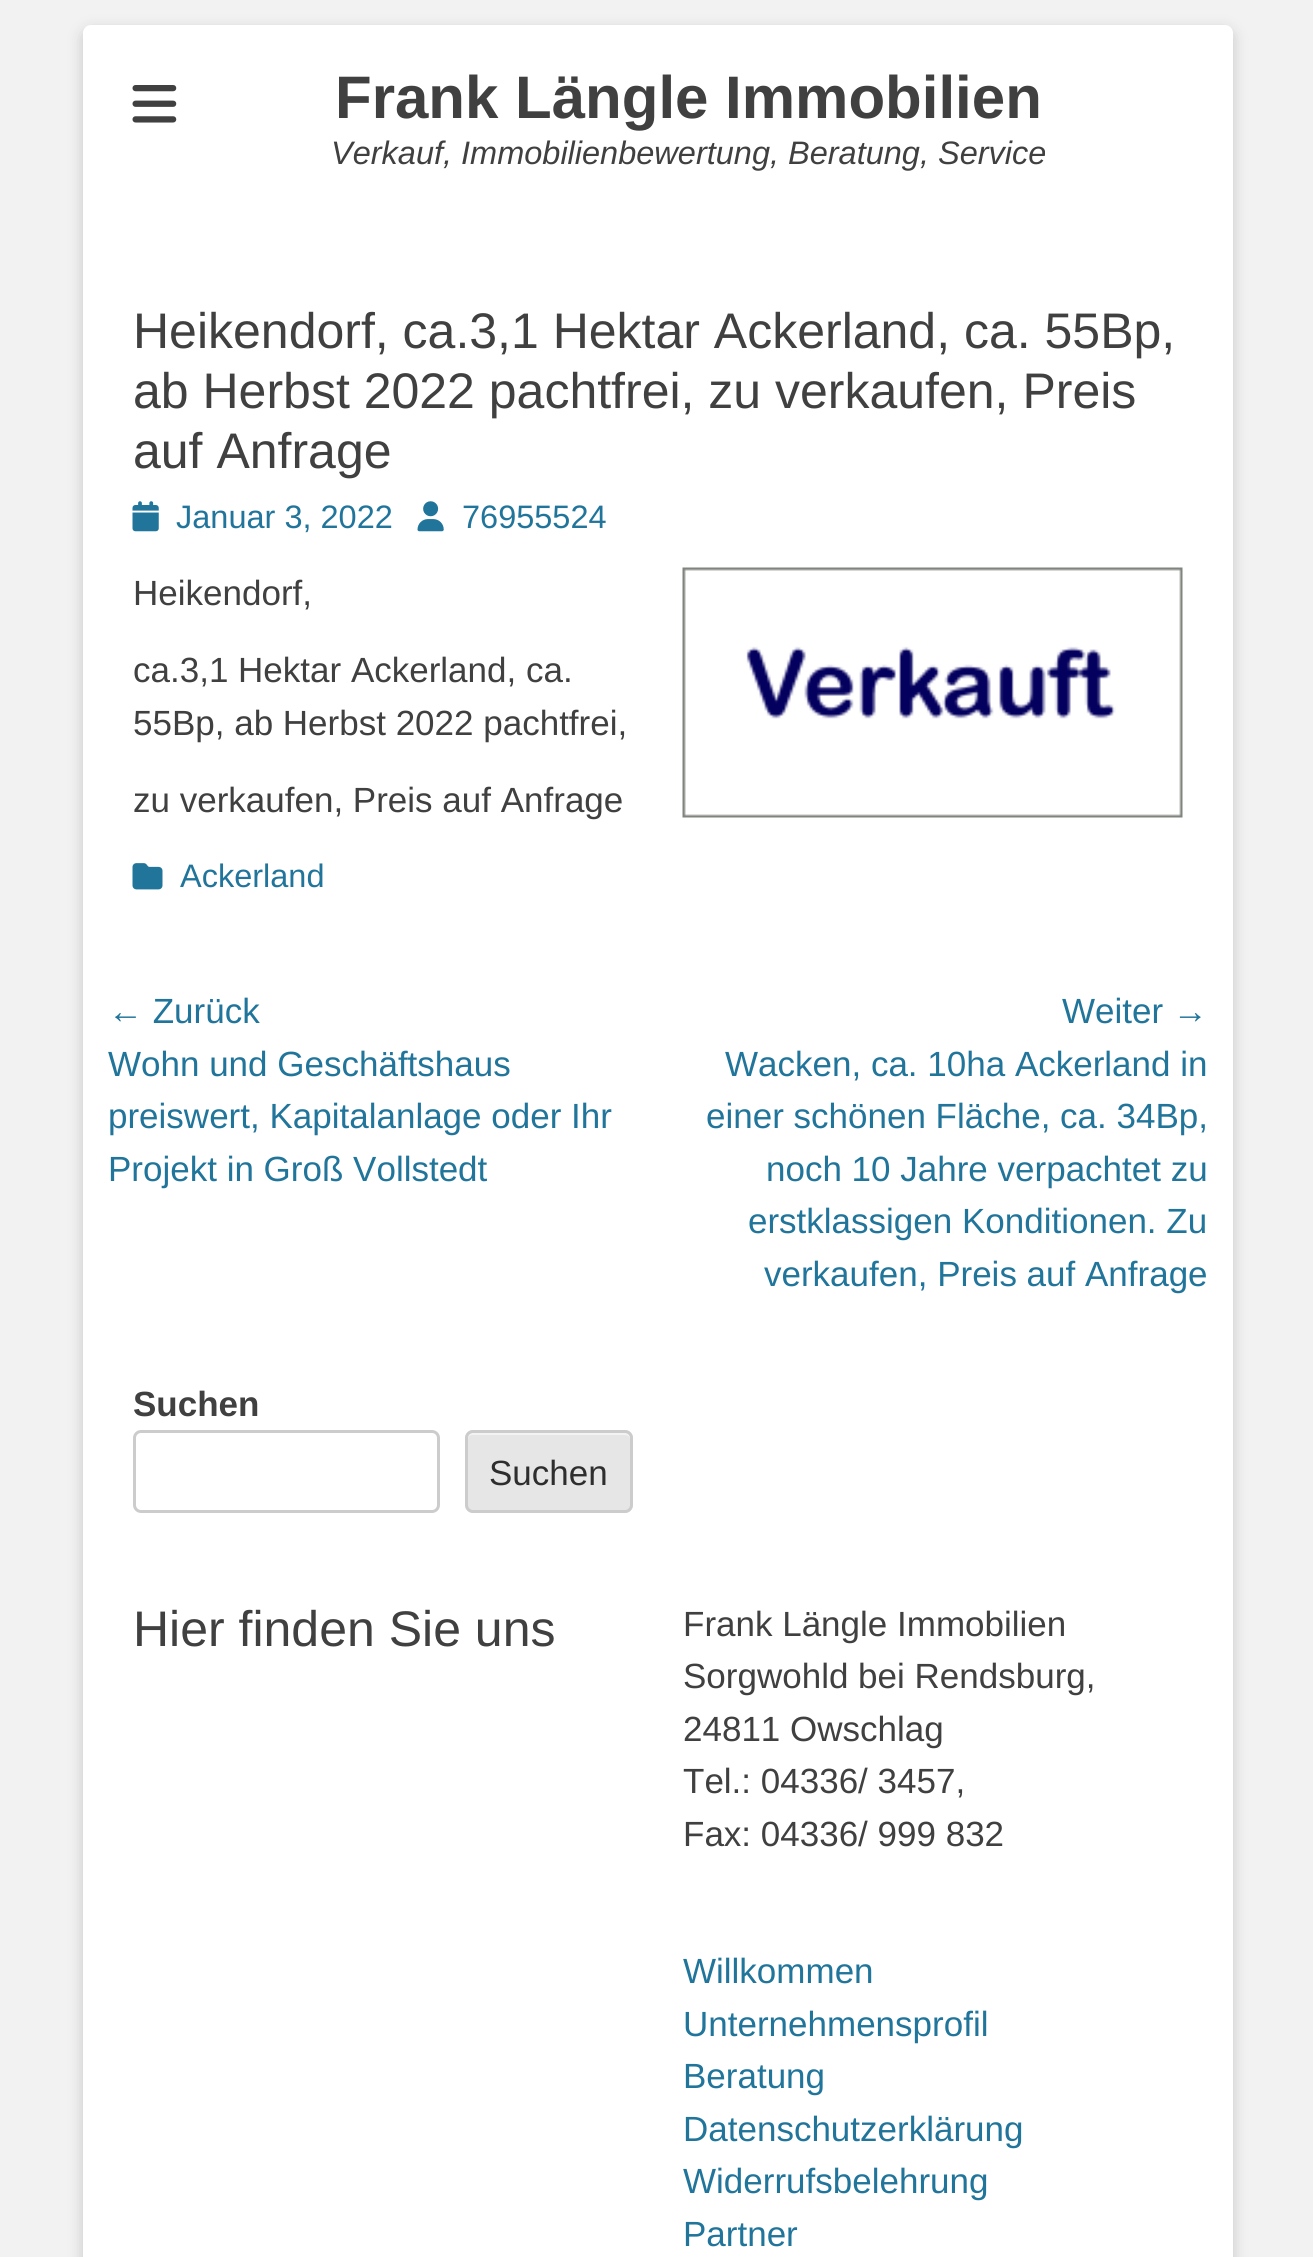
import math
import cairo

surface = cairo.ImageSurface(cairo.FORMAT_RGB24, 1313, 2257)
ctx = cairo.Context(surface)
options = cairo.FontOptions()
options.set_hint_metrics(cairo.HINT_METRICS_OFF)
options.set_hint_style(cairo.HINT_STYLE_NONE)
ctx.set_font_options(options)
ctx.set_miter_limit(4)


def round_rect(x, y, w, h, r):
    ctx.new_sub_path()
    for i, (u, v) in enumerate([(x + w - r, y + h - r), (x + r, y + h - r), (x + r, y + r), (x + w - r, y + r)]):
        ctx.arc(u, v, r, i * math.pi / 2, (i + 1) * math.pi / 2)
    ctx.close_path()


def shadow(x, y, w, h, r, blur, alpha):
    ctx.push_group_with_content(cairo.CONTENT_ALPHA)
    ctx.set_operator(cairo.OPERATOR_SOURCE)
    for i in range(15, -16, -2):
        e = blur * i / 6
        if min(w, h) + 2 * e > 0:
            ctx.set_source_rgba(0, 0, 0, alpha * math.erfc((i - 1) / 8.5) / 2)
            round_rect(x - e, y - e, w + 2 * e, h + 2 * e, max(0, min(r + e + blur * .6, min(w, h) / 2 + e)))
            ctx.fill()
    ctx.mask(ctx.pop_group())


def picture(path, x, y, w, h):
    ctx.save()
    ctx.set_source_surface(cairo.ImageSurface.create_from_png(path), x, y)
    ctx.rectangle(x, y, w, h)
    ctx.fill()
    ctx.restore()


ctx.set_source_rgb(0.949, 0.949, 0.949)
ctx.paint()
ctx.set_source_rgb(0.392, 0.392, 0.392)
shadow(83, 30, 1150, 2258, 8, 7.5, 0.3)
ctx.set_source_rgb(1, 1, 1)
round_rect(83, 25, 1150, 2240, 8)
ctx.fill()
picture("img1.png", 132, 85, 45, 38)
ctx.select_font_face("Liberation Sans", cairo.FONT_SLANT_NORMAL, cairo.FONT_WEIGHT_BOLD)
ctx.set_font_size(60)
ctx.set_source_rgb(0.251, 0.251, 0.251)
ctx.move_to(335, 118)
ctx.show_text("Frank Längle Immobilien")
ctx.select_font_face("Liberation Sans", cairo.FONT_SLANT_ITALIC)
ctx.set_font_size(32.5)
ctx.move_to(331, 164)
ctx.show_text("Verkauf, Immobilienbewertung, Beratung, Service")
ctx.select_font_face("Liberation Sans")
ctx.set_font_size(50)
ctx.move_to(133, 348)
ctx.show_text("Heikendorf, ca.3,1 Hektar Ackerland, ca. 55Bp,")
ctx.move_to(133, 408)
ctx.show_text("ab Herbst 2022 pachtfrei, zu verkaufen, Preis")
ctx.move_to(133, 468)
ctx.show_text("auf Anfrage")
picture("img2.png", 132, 501, 27, 31)
ctx.set_font_size(32.5)
ctx.set_source_rgb(0.129, 0.459, 0.608)
ctx.move_to(176, 528)
ctx.show_text("Januar 3, 2022")
picture("img3.png", 417, 501, 27, 31)
ctx.move_to(462, 528)
ctx.show_text("76955524")
ctx.set_font_size(35)
ctx.set_source_rgb(0.251, 0.251, 0.251)
ctx.move_to(133, 605)
ctx.show_text("Heikendorf,")
picture("img4.png", 682, 567, 501, 251)
ctx.move_to(133, 682)
ctx.show_text("ca.3,1 Hektar Ackerland, ca.")
ctx.move_to(133, 735)
ctx.show_text("55Bp, ab Herbst 2022 pachtfrei,")
ctx.move_to(133, 812)
ctx.show_text("zu verkaufen, Preis auf Anfrage")
picture("img5.png", 132, 863, 31, 27)
ctx.set_font_size(32.5)
ctx.set_source_rgb(0.129, 0.459, 0.608)
ctx.move_to(180, 887)
ctx.show_text("Ackerland")
ctx.set_font_size(35)
ctx.move_to(108, 1023)
ctx.show_text("← Zurück")
ctx.move_to(108, 1076)
ctx.show_text("Wohn und Geschäftshaus")
ctx.move_to(108, 1128)
ctx.show_text("preiswert, Kapitalanlage oder Ihr")
ctx.move_to(108, 1181)
ctx.show_text("Projekt in Groß Vollstedt")
ctx.move_to(1062, 1023)
ctx.show_text("Weiter →")
ctx.move_to(725, 1076)
ctx.show_text("Wacken, ca. 10ha Ackerland in")
ctx.move_to(706, 1128)
ctx.show_text("einer schönen Fläche, ca. 34Bp,")
ctx.move_to(766, 1181)
ctx.show_text("noch 10 Jahre verpachtet zu")
ctx.move_to(748, 1233)
ctx.show_text("erstklassigen Konditionen. Zu")
ctx.move_to(764, 1286)
ctx.show_text("verkaufen, Preis auf Anfrage")
ctx.select_font_face("Liberation Sans", cairo.FONT_SLANT_NORMAL, cairo.FONT_WEIGHT_BOLD)
ctx.set_source_rgb(0.251, 0.251, 0.251)
ctx.move_to(133, 1416)
ctx.show_text("Suchen")
round_rect(134.5, 1431.5, 304, 80, 6.5)
ctx.set_source_rgb(0.8, 0.8, 0.8)
ctx.set_line_width(3)
ctx.stroke()
ctx.set_source_rgb(0.902, 0.902, 0.902)
round_rect(465, 1430, 168, 83, 8)
ctx.fill()
ctx.set_source_rgb(0.953, 0.953, 0.953)
ctx.new_path()
ctx.move_to(472, 1435)
ctx.line_to(625, 1435)
ctx.curve_to(628, 1435, 630, 1437, 630, 1440)
ctx.line_to(630, 1438)
ctx.curve_to(630, 1435, 628, 1433, 625, 1433)
ctx.line_to(473, 1433)
ctx.curve_to(470, 1433, 468, 1435, 468, 1438)
ctx.line_to(468, 1440)
ctx.curve_to(468, 1437, 470, 1435, 472, 1435)
ctx.close_path()
ctx.fill()
round_rect(466.5, 1431.5, 165, 80, 6.5)
ctx.set_source_rgb(0.8, 0.8, 0.8)
ctx.stroke()
ctx.select_font_face("Liberation Sans")
ctx.set_source_rgb(0.18, 0.18, 0.18)
ctx.move_to(489, 1485)
ctx.show_text("Suchen")
ctx.set_font_size(50)
ctx.set_source_rgb(0.251, 0.251, 0.251)
ctx.move_to(133, 1646)
ctx.show_text("Hier finden Sie uns")
ctx.set_font_size(35)
ctx.move_to(683, 1636)
ctx.show_text("Frank Längle Immobilien")
ctx.move_to(683, 1688)
ctx.show_text("Sorgwohld bei Rendsburg,")
ctx.move_to(683, 1741)
ctx.show_text("24811 Owschlag")
ctx.move_to(683, 1793)
ctx.show_text("Tel.: 04336/ 3457,")
ctx.move_to(683, 1846)
ctx.show_text("Fax: 04336/ 999 832")
ctx.set_source_rgb(0.129, 0.459, 0.608)
ctx.move_to(683, 1983)
ctx.show_text("Willkommen")
ctx.move_to(683, 2036)
ctx.show_text("Unternehmensprofil")
ctx.move_to(683, 2088)
ctx.show_text("Beratung")
ctx.move_to(683, 2141)
ctx.show_text("Datenschutzerklärung")
ctx.move_to(683, 2193)
ctx.show_text("Widerrufsbelehrung")
ctx.move_to(683, 2246)
ctx.show_text("Partner")
surface.write_to_png("page.png")
